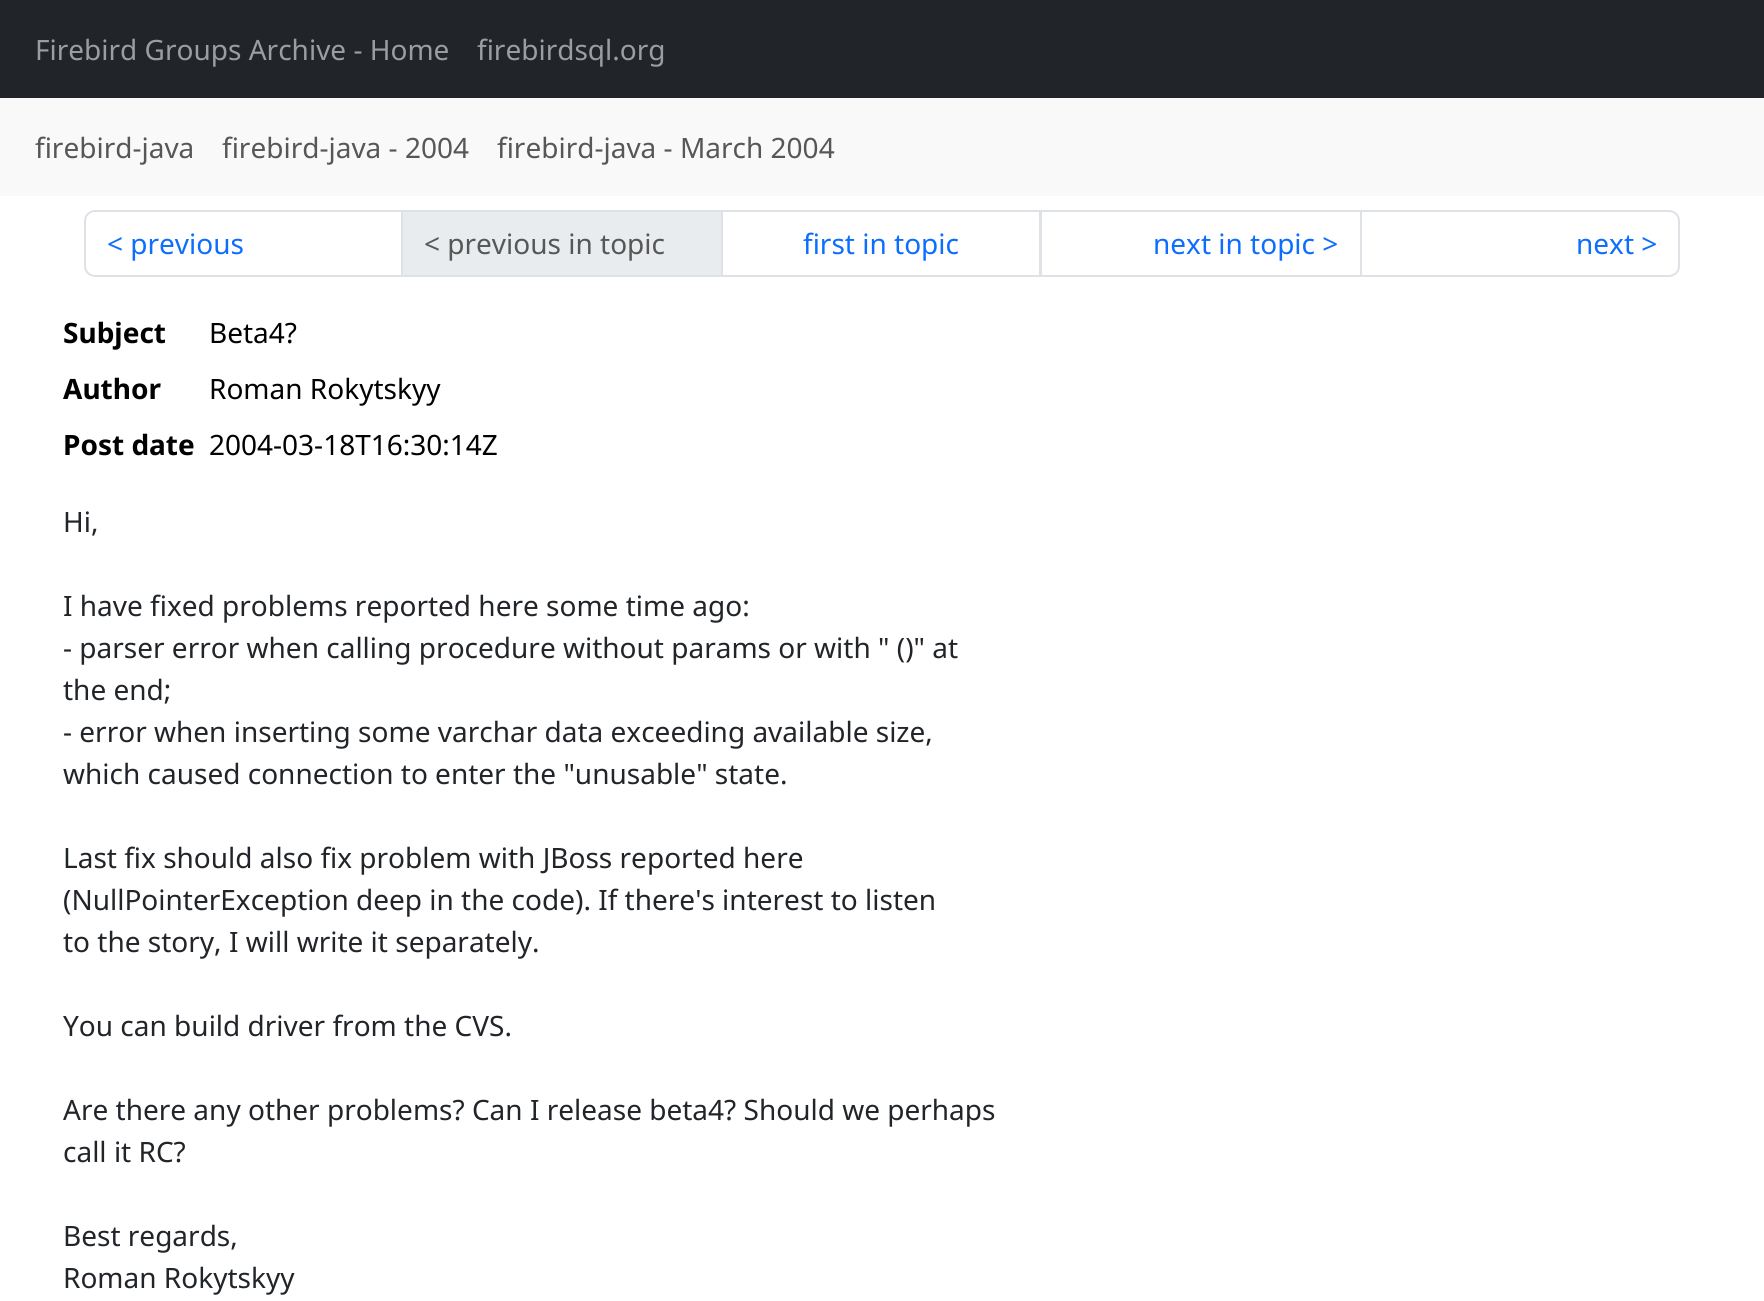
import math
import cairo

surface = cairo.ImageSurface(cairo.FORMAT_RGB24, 1764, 1301)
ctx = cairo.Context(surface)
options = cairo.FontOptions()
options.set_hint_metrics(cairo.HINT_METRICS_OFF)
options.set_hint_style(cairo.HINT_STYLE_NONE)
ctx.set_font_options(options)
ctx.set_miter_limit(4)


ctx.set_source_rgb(1, 1, 1)
ctx.paint()
ctx.set_source_rgb(0.129, 0.145, 0.161)
ctx.rectangle(0, 0, 1764, 98)
ctx.fill()
ctx.select_font_face("Noto Sans")
ctx.set_font_size(28)
ctx.set_source_rgb(0.608, 0.616, 0.624)
ctx.move_to(35, 60)
ctx.show_text("Firebird Groups Archive - Home")
ctx.move_to(477, 60)
ctx.show_text("firebirdsql.org")
ctx.set_source_rgb(0.973, 0.976, 0.98)
ctx.rectangle(0, 98, 1764, 98)
ctx.fill()
ctx.set_source_rgb(0.341, 0.341, 0.345)
ctx.move_to(35, 158)
ctx.show_text("firebird-java")
ctx.move_to(222, 158)
ctx.show_text("firebird-java - 2004")
ctx.move_to(497, 158)
ctx.show_text("firebird-java - March 2004")
ctx.new_path()
ctx.move_to(95, 211)
ctx.line_to(402, 211)
ctx.line_to(402, 276)
ctx.line_to(95, 276)
ctx.curve_to(89.5, 276, 85, 271.5, 85, 266)
ctx.line_to(85, 221)
ctx.curve_to(85, 215.5, 89.5, 211, 95, 211)
ctx.close_path()
ctx.set_source_rgb(0.871, 0.886, 0.902)
ctx.stroke()
ctx.set_source_rgb(0.051, 0.431, 0.992)
ctx.move_to(107, 254)
ctx.show_text("< previous")
ctx.set_source_rgb(0.914, 0.925, 0.937)
ctx.rectangle(402, 211, 320, 65)
ctx.fill_preserve()
ctx.set_source_rgb(0.871, 0.886, 0.902)
ctx.stroke()
ctx.set_source_rgb(0.341, 0.341, 0.345)
ctx.move_to(424, 254)
ctx.show_text("< previous in topic")
ctx.rectangle(722, 211, 318, 65)
ctx.set_source_rgb(0.871, 0.886, 0.902)
ctx.stroke()
ctx.set_source_rgb(0.051, 0.431, 0.992)
ctx.move_to(803, 254)
ctx.show_text("first in topic")
ctx.rectangle(1041, 211, 320, 65)
ctx.set_source_rgb(0.871, 0.886, 0.902)
ctx.stroke()
ctx.set_source_rgb(0.051, 0.431, 0.992)
ctx.move_to(1153, 254)
ctx.show_text("next in topic >")
ctx.set_source_rgb(1, 1, 1)
ctx.new_path()
ctx.move_to(1361, 211)
ctx.line_to(1669, 211)
ctx.curve_to(1674.5, 211, 1679, 215.5, 1679, 221)
ctx.line_to(1679, 266)
ctx.curve_to(1679, 271.5, 1674.5, 276, 1669, 276)
ctx.line_to(1361, 276)
ctx.close_path()
ctx.fill_preserve()
ctx.set_source_rgb(0.871, 0.886, 0.902)
ctx.stroke()
ctx.set_source_rgb(0.051, 0.431, 0.992)
ctx.move_to(1576, 254)
ctx.show_text("next >")
ctx.select_font_face("Noto Sans", cairo.FONT_SLANT_NORMAL, cairo.FONT_WEIGHT_BOLD)
ctx.set_source_rgb(0, 0, 0)
ctx.move_to(63, 343)
ctx.show_text("Subject")
ctx.select_font_face("Noto Sans")
ctx.move_to(209, 343)
ctx.show_text("Beta4?")
ctx.select_font_face("Noto Sans", cairo.FONT_SLANT_NORMAL, cairo.FONT_WEIGHT_BOLD)
ctx.move_to(63, 399)
ctx.show_text("Author")
ctx.select_font_face("Noto Sans")
ctx.move_to(209, 399)
ctx.show_text("Roman Rokytskyy")
ctx.select_font_face("Noto Sans", cairo.FONT_SLANT_NORMAL, cairo.FONT_WEIGHT_BOLD)
ctx.move_to(63, 455)
ctx.show_text("Post date")
ctx.select_font_face("Noto Sans")
ctx.move_to(209, 455)
ctx.show_text("2004-03-18T16:30:14Z")
ctx.set_source_rgb(0.129, 0.145, 0.161)
ctx.move_to(63, 532)
ctx.show_text("Hi,")
ctx.move_to(63, 616)
ctx.show_text("I have fixed problems reported here some time ago:")
ctx.move_to(63, 658)
ctx.show_text("- parser error when calling procedure without params or with \" ()\" at")
ctx.move_to(63, 700)
ctx.show_text("the end;")
ctx.move_to(63, 742)
ctx.show_text("- error when inserting some varchar data exceeding available size,")
ctx.move_to(63, 784)
ctx.show_text("which caused connection to enter the \"unusable\" state.")
ctx.move_to(63, 868)
ctx.show_text("Last fix should also fix problem with JBoss reported here")
ctx.move_to(63, 910)
ctx.show_text("(NullPointerException deep in the code). If there's interest to listen")
ctx.move_to(63, 952)
ctx.show_text("to the story, I will write it separately.")
ctx.move_to(63, 1036)
ctx.show_text("You can build driver from the CVS.")
ctx.move_to(63, 1120)
ctx.show_text("Are there any other problems? Can I release beta4? Should we perhaps")
ctx.move_to(63, 1162)
ctx.show_text("call it RC?")
ctx.move_to(63, 1246)
ctx.show_text("Best regards,")
ctx.move_to(63, 1288)
ctx.show_text("Roman Rokytskyy")
surface.write_to_png("page.png")
